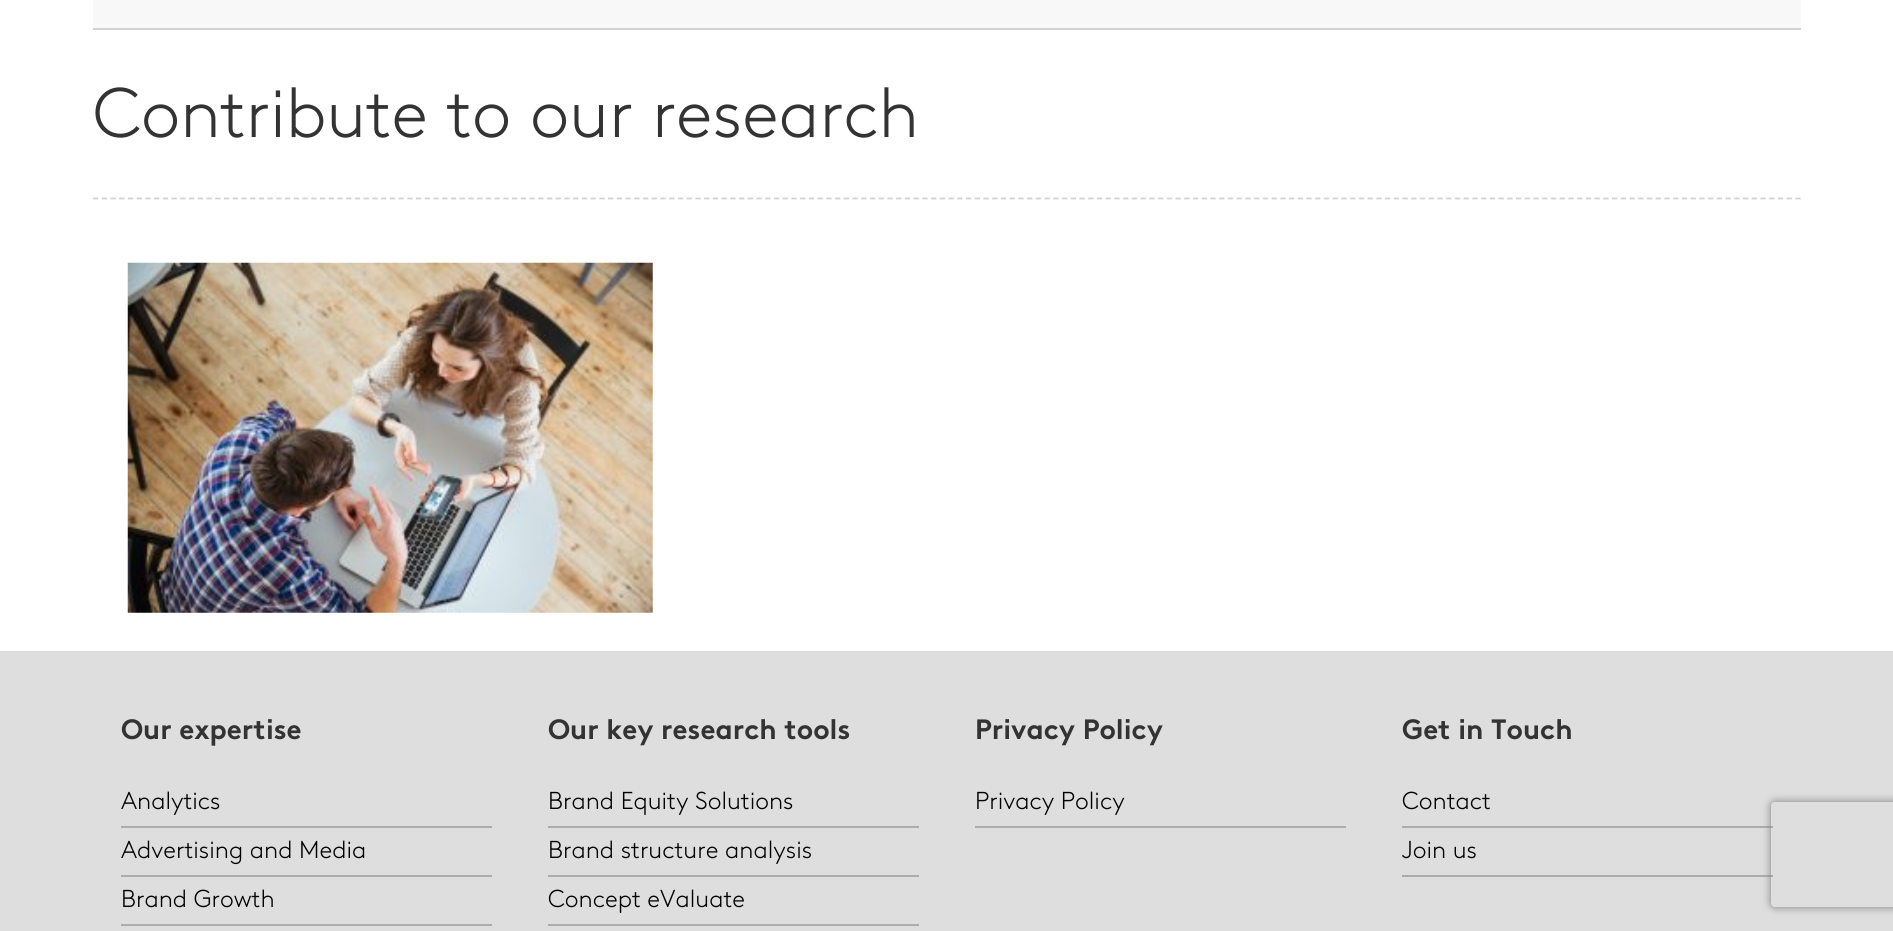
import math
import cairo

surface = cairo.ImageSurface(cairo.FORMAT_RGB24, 1893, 931)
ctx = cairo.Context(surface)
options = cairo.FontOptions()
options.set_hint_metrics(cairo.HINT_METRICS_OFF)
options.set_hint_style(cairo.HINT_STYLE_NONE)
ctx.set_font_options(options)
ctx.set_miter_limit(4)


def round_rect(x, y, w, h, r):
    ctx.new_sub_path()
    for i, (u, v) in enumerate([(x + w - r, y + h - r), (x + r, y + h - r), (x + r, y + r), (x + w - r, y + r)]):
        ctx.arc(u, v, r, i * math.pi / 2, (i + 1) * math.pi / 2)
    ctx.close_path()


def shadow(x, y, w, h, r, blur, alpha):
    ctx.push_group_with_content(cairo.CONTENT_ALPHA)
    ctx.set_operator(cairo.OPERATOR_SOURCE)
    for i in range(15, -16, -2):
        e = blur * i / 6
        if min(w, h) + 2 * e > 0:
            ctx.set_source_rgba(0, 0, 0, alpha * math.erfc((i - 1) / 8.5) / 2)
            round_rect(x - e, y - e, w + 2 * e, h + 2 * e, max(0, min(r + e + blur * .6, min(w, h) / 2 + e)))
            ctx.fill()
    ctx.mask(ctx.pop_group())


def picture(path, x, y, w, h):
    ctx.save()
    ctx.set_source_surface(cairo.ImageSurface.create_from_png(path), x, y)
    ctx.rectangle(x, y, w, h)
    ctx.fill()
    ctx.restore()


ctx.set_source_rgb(1, 1, 1)
ctx.paint()
ctx.set_source_rgb(0.969, 0.969, 0.969)
ctx.rectangle(93, 0, 1708, 28)
ctx.fill()
ctx.set_source_rgb(0.824, 0.824, 0.824)
ctx.rectangle(93, 28, 1708, 2)
ctx.fill()
ctx.new_path()
ctx.move_to(93, 198.5)
ctx.line_to(1801, 198.5)
ctx.set_line_width(1.8)
ctx.set_dash([5.25, 3.48])
ctx.stroke()
ctx.select_font_face("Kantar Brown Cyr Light")
ctx.set_font_size(70)
ctx.set_source_rgb(0.2, 0.2, 0.2)
ctx.move_to(93, 137)
ctx.show_text("Contribute to our research")
picture("img1.png", 127, 262, 526, 351)
ctx.set_source_rgb(0.871, 0.871, 0.871)
ctx.rectangle(0, 651, 1893, 280)
ctx.fill()
ctx.select_font_face("Kantar Brown Cyr", cairo.FONT_SLANT_NORMAL, cairo.FONT_WEIGHT_BOLD)
ctx.set_font_size(28)
ctx.set_source_rgb(0.2, 0.2, 0.2)
ctx.move_to(121, 739)
ctx.show_text("Our expertise")
ctx.set_source_rgb(0.675, 0.675, 0.675)
ctx.rectangle(121, 826, 371, 2)
ctx.fill()
ctx.select_font_face("Kantar Brown Cyr Light")
ctx.set_font_size(24.5)
ctx.set_source_rgb(0, 0, 0)
ctx.move_to(121, 809)
ctx.show_text("Analytics")
ctx.set_source_rgb(0.675, 0.675, 0.675)
ctx.rectangle(121, 875, 371, 2)
ctx.fill()
ctx.set_source_rgb(0, 0, 0)
ctx.move_to(121, 858)
ctx.show_text("Advertising and Media")
ctx.set_source_rgb(0.675, 0.675, 0.675)
ctx.rectangle(121, 924, 371, 2)
ctx.fill()
ctx.set_source_rgb(0, 0, 0)
ctx.move_to(121, 907)
ctx.show_text("Brand Growth")
ctx.select_font_face("Kantar Brown Cyr", cairo.FONT_SLANT_NORMAL, cairo.FONT_WEIGHT_BOLD)
ctx.set_font_size(28)
ctx.set_source_rgb(0.2, 0.2, 0.2)
ctx.move_to(548, 739)
ctx.show_text("Our key research tools")
ctx.set_source_rgb(0.675, 0.675, 0.675)
ctx.rectangle(548, 826, 371, 2)
ctx.fill()
ctx.select_font_face("Kantar Brown Cyr Light")
ctx.set_font_size(24.5)
ctx.set_source_rgb(0, 0, 0)
ctx.move_to(548, 809)
ctx.show_text("Brand Equity Solutions")
ctx.set_source_rgb(0.675, 0.675, 0.675)
ctx.rectangle(548, 875, 371, 2)
ctx.fill()
ctx.set_source_rgb(0, 0, 0)
ctx.move_to(548, 858)
ctx.show_text("Brand structure analysis")
ctx.set_source_rgb(0.675, 0.675, 0.675)
ctx.rectangle(548, 924, 371, 2)
ctx.fill()
ctx.set_source_rgb(0, 0, 0)
ctx.move_to(548, 907)
ctx.show_text("Concept eValuate")
ctx.select_font_face("Kantar Brown Cyr", cairo.FONT_SLANT_NORMAL, cairo.FONT_WEIGHT_BOLD)
ctx.set_font_size(28)
ctx.set_source_rgb(0.2, 0.2, 0.2)
ctx.move_to(975, 739)
ctx.show_text("Privacy Policy")
ctx.set_source_rgb(0.675, 0.675, 0.675)
ctx.rectangle(975, 826, 371, 2)
ctx.fill()
ctx.select_font_face("Kantar Brown Cyr Light")
ctx.set_font_size(24.5)
ctx.set_source_rgb(0, 0, 0)
ctx.move_to(975, 809)
ctx.show_text("Privacy Policy")
ctx.select_font_face("Kantar Brown Cyr", cairo.FONT_SLANT_NORMAL, cairo.FONT_WEIGHT_BOLD)
ctx.set_font_size(28)
ctx.set_source_rgb(0.2, 0.2, 0.2)
ctx.move_to(1402, 739)
ctx.show_text("Get in Touch")
ctx.set_source_rgb(0.675, 0.675, 0.675)
ctx.rectangle(1402, 826, 371, 2)
ctx.fill()
ctx.select_font_face("Kantar Brown Cyr Light")
ctx.set_font_size(24.5)
ctx.set_source_rgb(0, 0, 0)
ctx.move_to(1402, 809)
ctx.show_text("Contact")
ctx.set_source_rgb(0.675, 0.675, 0.675)
ctx.rectangle(1402, 875, 371, 2)
ctx.fill()
ctx.set_source_rgb(0, 0, 0)
ctx.move_to(1402, 858)
ctx.show_text("Join us")
ctx.save()
ctx.set_fill_rule(cairo.FILL_RULE_EVEN_ODD)
ctx.new_path()
ctx.move_to(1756, 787)
ctx.line_to(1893, 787)
ctx.line_to(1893, 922)
ctx.line_to(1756, 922)
ctx.close_path()
ctx.move_to(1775, 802)
ctx.line_to(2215, 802)
ctx.curve_to(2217, 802, 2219, 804, 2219, 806)
ctx.line_to(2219, 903)
ctx.curve_to(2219, 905, 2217, 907, 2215, 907)
ctx.line_to(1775, 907)
ctx.curve_to(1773, 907, 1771, 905, 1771, 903)
ctx.line_to(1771, 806)
ctx.curve_to(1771, 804, 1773, 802, 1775, 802)
ctx.close_path()
ctx.clip()
ctx.set_source_rgb(0.502, 0.502, 0.502)
shadow(1771, 802, 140, 105, 4, 4.5, 1)
ctx.restore()
surface.write_to_png("page.png")
